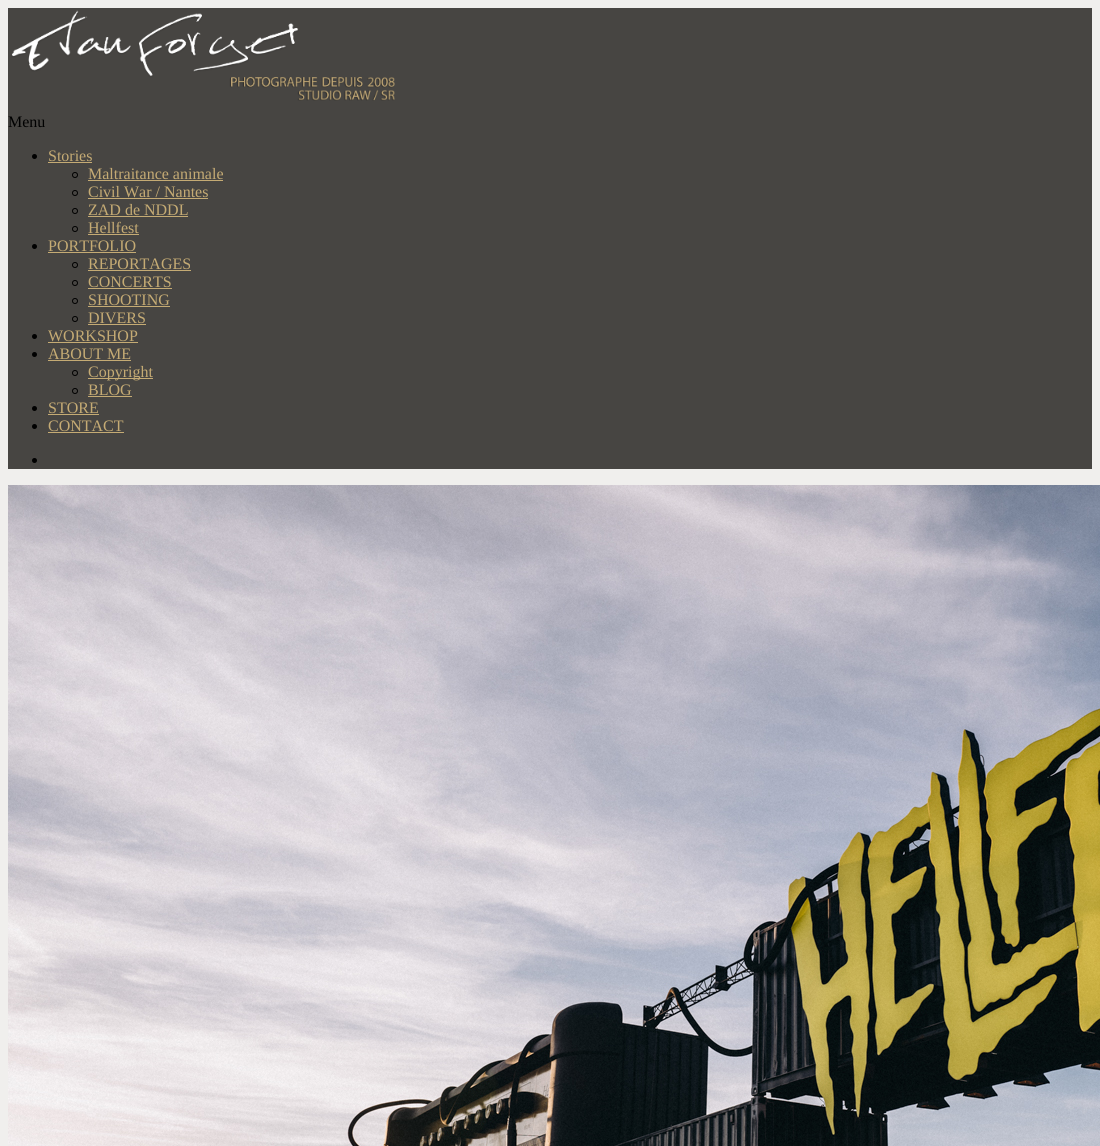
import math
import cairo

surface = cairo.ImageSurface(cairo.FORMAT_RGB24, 1100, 1146)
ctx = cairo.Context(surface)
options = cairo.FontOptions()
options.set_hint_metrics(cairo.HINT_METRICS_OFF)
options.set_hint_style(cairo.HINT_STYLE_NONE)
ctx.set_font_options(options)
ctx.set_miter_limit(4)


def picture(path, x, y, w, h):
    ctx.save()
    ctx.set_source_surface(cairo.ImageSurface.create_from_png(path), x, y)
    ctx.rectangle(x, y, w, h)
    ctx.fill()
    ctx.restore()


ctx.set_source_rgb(0.941, 0.937, 0.929)
ctx.paint()
ctx.set_source_rgb(0.278, 0.271, 0.259)
ctx.rectangle(8, 8, 1084, 461)
ctx.fill()
picture("img1.png", 11, 10, 384, 91)
ctx.select_font_face("Liberation Serif")
ctx.set_font_size(16)
ctx.set_source_rgb(0, 0, 0)
ctx.move_to(8, 127)
ctx.show_text("Menu")
ctx.new_path()
ctx.arc(34.5, 156.5, 2.5, 0, 2 * math.pi)
ctx.fill()
ctx.set_source_rgb(0.773, 0.671, 0.455)
ctx.move_to(48, 161)
ctx.show_text("Stories")
ctx.rectangle(48, 162, 44, 1)
ctx.fill()
ctx.arc(75, 175, 2.5, 0, 2 * math.pi)
ctx.set_source_rgb(0, 0, 0)
ctx.set_line_width(1)
ctx.stroke()
ctx.set_source_rgb(0.773, 0.671, 0.455)
ctx.move_to(88, 179)
ctx.show_text("Maltraitance animale")
ctx.rectangle(88, 180, 135, 1)
ctx.fill()
ctx.arc(75, 193, 2.5, 0, 2 * math.pi)
ctx.set_source_rgb(0, 0, 0)
ctx.stroke()
ctx.set_source_rgb(0.773, 0.671, 0.455)
ctx.move_to(88, 197)
ctx.show_text("Civil War / Nantes")
ctx.rectangle(88, 198, 120, 1)
ctx.fill()
ctx.arc(75, 211, 2.5, 0, 2 * math.pi)
ctx.set_source_rgb(0, 0, 0)
ctx.stroke()
ctx.set_source_rgb(0.773, 0.671, 0.455)
ctx.move_to(88, 215)
ctx.show_text("ZAD de NDDL")
ctx.rectangle(88, 216, 100, 1)
ctx.fill()
ctx.arc(75, 229, 2.5, 0, 2 * math.pi)
ctx.set_source_rgb(0, 0, 0)
ctx.stroke()
ctx.set_source_rgb(0.773, 0.671, 0.455)
ctx.move_to(88, 233)
ctx.show_text("Hellfest")
ctx.rectangle(88, 234, 51, 1)
ctx.fill()
ctx.set_source_rgb(0, 0, 0)
ctx.arc(34.5, 246.5, 2.5, 0, 2 * math.pi)
ctx.fill()
ctx.set_source_rgb(0.773, 0.671, 0.455)
ctx.move_to(48, 251)
ctx.show_text("PORTFOLIO")
ctx.rectangle(48, 252, 88, 1)
ctx.fill()
ctx.arc(75, 265, 2.5, 0, 2 * math.pi)
ctx.set_source_rgb(0, 0, 0)
ctx.stroke()
ctx.set_source_rgb(0.773, 0.671, 0.455)
ctx.move_to(88, 269)
ctx.show_text("REPORTAGES")
ctx.rectangle(88, 270, 103, 1)
ctx.fill()
ctx.arc(75, 283, 2.5, 0, 2 * math.pi)
ctx.set_source_rgb(0, 0, 0)
ctx.stroke()
ctx.set_source_rgb(0.773, 0.671, 0.455)
ctx.move_to(88, 287)
ctx.show_text("CONCERTS")
ctx.rectangle(88, 288, 84, 1)
ctx.fill()
ctx.arc(75, 301, 2.5, 0, 2 * math.pi)
ctx.set_source_rgb(0, 0, 0)
ctx.stroke()
ctx.set_source_rgb(0.773, 0.671, 0.455)
ctx.move_to(88, 305)
ctx.show_text("SHOOTING")
ctx.rectangle(88, 306, 82, 1)
ctx.fill()
ctx.arc(75, 319, 2.5, 0, 2 * math.pi)
ctx.set_source_rgb(0, 0, 0)
ctx.stroke()
ctx.set_source_rgb(0.773, 0.671, 0.455)
ctx.move_to(88, 323)
ctx.show_text("DIVERS")
ctx.rectangle(88, 324, 58, 1)
ctx.fill()
ctx.set_source_rgb(0, 0, 0)
ctx.arc(34.5, 336.5, 2.5, 0, 2 * math.pi)
ctx.fill()
ctx.set_source_rgb(0.773, 0.671, 0.455)
ctx.move_to(48, 341)
ctx.show_text("WORKSHOP")
ctx.rectangle(48, 342, 90, 1)
ctx.fill()
ctx.set_source_rgb(0, 0, 0)
ctx.arc(34.5, 354.5, 2.5, 0, 2 * math.pi)
ctx.fill()
ctx.set_source_rgb(0.773, 0.671, 0.455)
ctx.move_to(48, 359)
ctx.show_text("ABOUT ME")
ctx.rectangle(48, 360, 83, 1)
ctx.fill()
ctx.arc(75, 373, 2.5, 0, 2 * math.pi)
ctx.set_source_rgb(0, 0, 0)
ctx.stroke()
ctx.set_source_rgb(0.773, 0.671, 0.455)
ctx.rectangle(88, 378, 65, 1)
ctx.fill()
ctx.move_to(88, 377)
ctx.show_text("Copyright")
ctx.new_path()
ctx.arc(75, 391, 2.5, 0, 2 * math.pi)
ctx.set_source_rgb(0, 0, 0)
ctx.stroke()
ctx.set_source_rgb(0.773, 0.671, 0.455)
ctx.move_to(88, 395)
ctx.show_text("BLOG")
ctx.rectangle(88, 396, 44, 1)
ctx.fill()
ctx.set_source_rgb(0, 0, 0)
ctx.arc(34.5, 408.5, 2.5, 0, 2 * math.pi)
ctx.fill()
ctx.set_source_rgb(0.773, 0.671, 0.455)
ctx.move_to(48, 413)
ctx.show_text("STORE")
ctx.rectangle(48, 414, 51, 1)
ctx.fill()
ctx.set_source_rgb(0, 0, 0)
ctx.arc(34.5, 426.5, 2.5, 0, 2 * math.pi)
ctx.fill()
ctx.set_source_rgb(0.773, 0.671, 0.455)
ctx.move_to(48, 431)
ctx.show_text("CONTACT")
ctx.rectangle(48, 432, 76, 1)
ctx.fill()
ctx.set_source_rgb(0, 0, 0)
ctx.arc(34.5, 460.5, 2.5, 0, 2 * math.pi)
ctx.fill()
picture("img2.png", 8, 485, 1092, 661)
surface.write_to_png("page.png")
